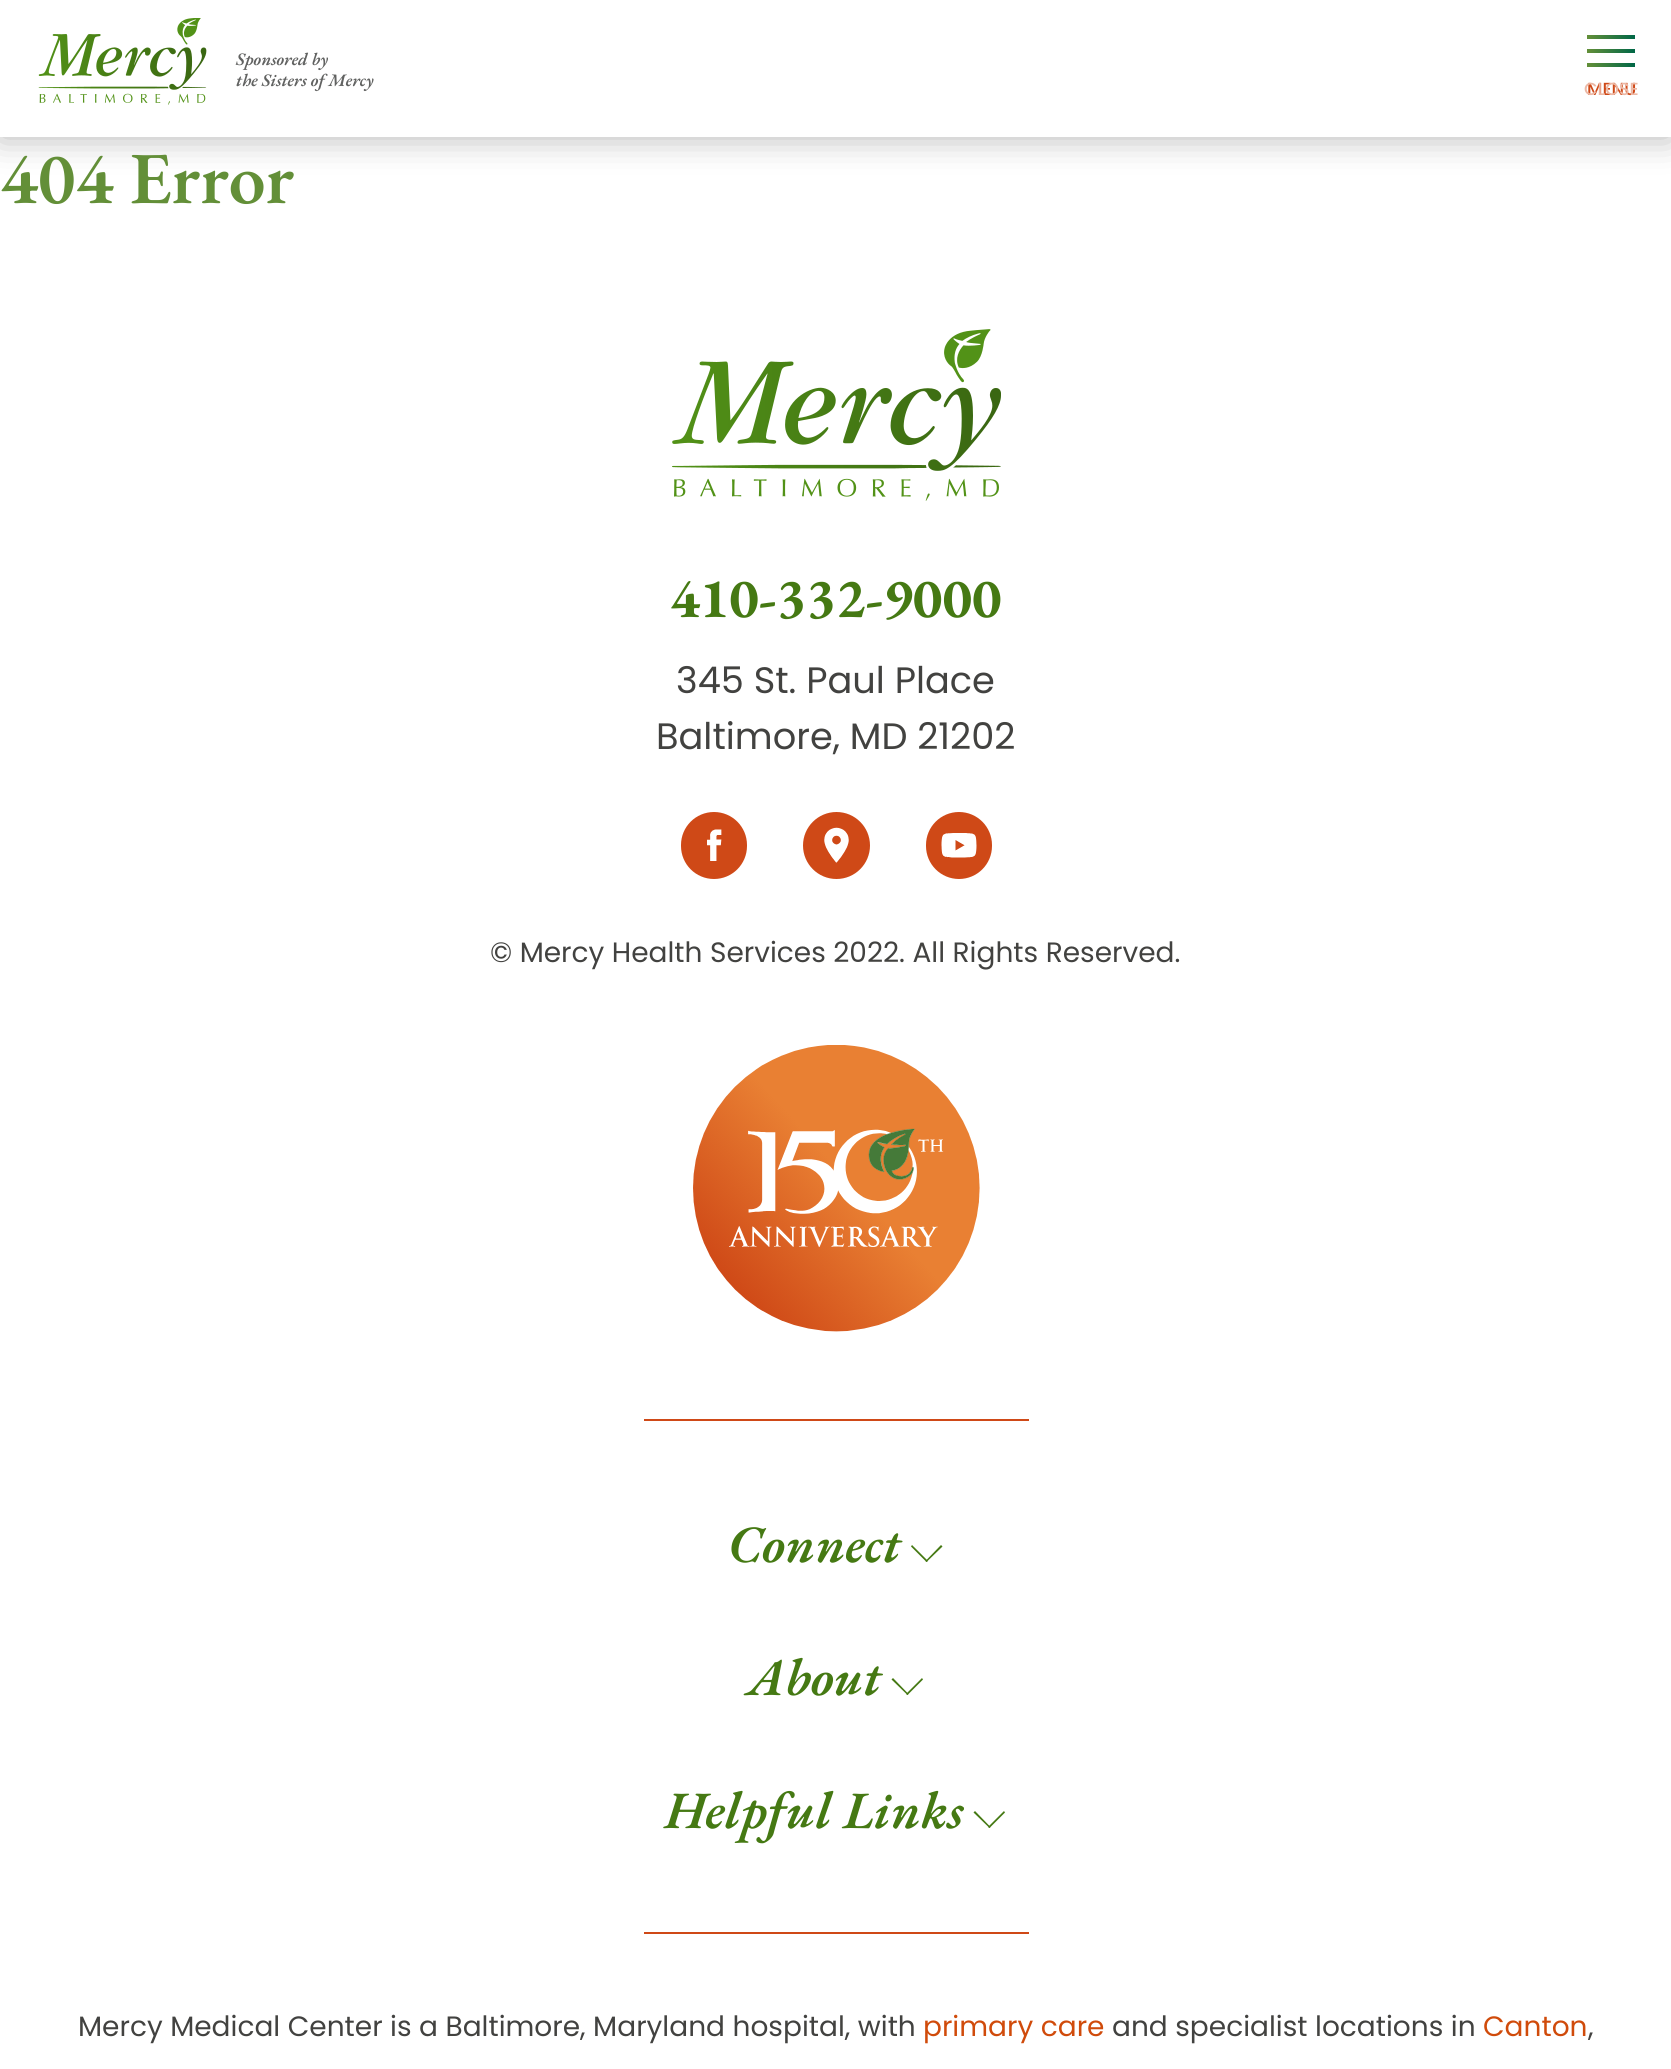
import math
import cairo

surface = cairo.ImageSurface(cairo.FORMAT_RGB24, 1671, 2069)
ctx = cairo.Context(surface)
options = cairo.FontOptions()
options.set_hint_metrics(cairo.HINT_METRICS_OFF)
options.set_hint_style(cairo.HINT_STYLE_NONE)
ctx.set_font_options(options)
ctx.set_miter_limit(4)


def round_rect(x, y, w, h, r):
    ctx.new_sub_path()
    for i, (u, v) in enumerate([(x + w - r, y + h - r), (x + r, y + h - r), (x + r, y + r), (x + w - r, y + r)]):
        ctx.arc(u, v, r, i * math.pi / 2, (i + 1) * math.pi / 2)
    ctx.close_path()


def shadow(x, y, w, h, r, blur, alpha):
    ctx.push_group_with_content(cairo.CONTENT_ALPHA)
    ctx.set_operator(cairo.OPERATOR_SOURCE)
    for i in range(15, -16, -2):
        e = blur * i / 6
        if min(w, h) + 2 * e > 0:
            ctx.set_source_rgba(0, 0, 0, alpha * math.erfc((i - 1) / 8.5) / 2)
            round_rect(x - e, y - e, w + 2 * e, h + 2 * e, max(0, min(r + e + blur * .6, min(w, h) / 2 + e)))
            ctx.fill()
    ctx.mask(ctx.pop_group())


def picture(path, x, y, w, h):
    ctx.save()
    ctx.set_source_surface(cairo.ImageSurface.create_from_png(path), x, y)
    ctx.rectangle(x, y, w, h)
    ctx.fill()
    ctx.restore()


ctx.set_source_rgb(1, 1, 1)
ctx.paint()
ctx.set_source_rgb(0, 0, 0)
shadow(0, 0, 1671, 137, 0, 17.5, 0.3)
ctx.set_source_rgb(1, 1, 1)
ctx.rectangle(0, 0, 1671, 137)
ctx.fill()
picture("img1.png", 38, 18, 169, 87)
ctx.select_font_face("EB Garamond SemiBold", cairo.FONT_SLANT_ITALIC)
ctx.set_font_size(17.5)
ctx.set_source_rgb(0.38, 0.384, 0.38)
ctx.move_to(236, 65)
ctx.show_text("Sponsored by")
ctx.move_to(236, 86)
ctx.show_text("the Sisters of Mercy")
gradient = cairo.LinearGradient(1635, 51, 1587, 51)
gradient.add_color_stop_rgba(0, 0, 0.404, 0.278, 1)
gradient.add_color_stop_rgba(1, 0.388, 0.561, 0.22, 1)
ctx.set_source(gradient)
ctx.rectangle(1587, 49, 48, 4)
ctx.fill()
gradient = cairo.LinearGradient(1635, 37, 1587, 37)
gradient.add_color_stop_rgba(0, 0, 0.404, 0.278, 1)
gradient.add_color_stop_rgba(1, 0.388, 0.561, 0.22, 1)
ctx.set_source(gradient)
ctx.rectangle(1587, 35, 48, 4)
ctx.fill()
gradient = cairo.LinearGradient(1635, 65, 1587, 65)
gradient.add_color_stop_rgba(0, 0, 0.404, 0.278, 1)
gradient.add_color_stop_rgba(1, 0.388, 0.561, 0.22, 1)
ctx.set_source(gradient)
ctx.rectangle(1587, 63, 48, 4)
ctx.fill()
ctx.select_font_face("Poppins Medium")
ctx.set_source_rgb(0.812, 0.286, 0.09)
ctx.move_to(1587, 95)
ctx.show_text("MENU")
ctx.set_source_rgb(0.925, 0.722, 0.647)
ctx.move_to(1584, 95)
ctx.show_text("CLOSE")
ctx.select_font_face("EB Garamond SemiBold")
ctx.set_font_size(73.5)
ctx.set_source_rgb(0.388, 0.561, 0.22)
ctx.move_to(0, 203)
ctx.show_text("404 Error")
picture("img2.png", 672, 329, 329, 172)
ctx.select_font_face("EB Garamond", cairo.FONT_SLANT_NORMAL, cairo.FONT_WEIGHT_BOLD)
ctx.set_font_size(56)
ctx.set_source_rgb(0.271, 0.475, 0.078)
ctx.move_to(670, 617)
ctx.show_text("410-332-9000")
ctx.select_font_face("Poppins")
ctx.set_font_size(36.75)
ctx.set_source_rgb(0.259, 0.259, 0.251)
ctx.move_to(676, 693)
ctx.show_text("345 St. Paul Place")
ctx.move_to(656, 749)
ctx.show_text("Baltimore, MD 21202")
ctx.set_source_rgb(0.812, 0.286, 0.09)
round_rect(681, 812, 66, 67, 33)
ctx.fill()
picture("img3.png", 707, 829, 15, 32)
ctx.arc(836.5, 845.5, 33.5, 0, 2 * math.pi)
ctx.fill()
picture("img4.png", 824, 827, 25, 36)
round_rect(926, 812, 66, 67, 33)
ctx.fill()
picture("img5.png", 941, 833, 36, 25)
ctx.set_font_size(28)
ctx.set_source_rgb(0.259, 0.259, 0.251)
ctx.move_to(490, 962)
ctx.show_text("© Mercy Health Services 2022. All Rights Reserved.")
picture("img6.png", 693, 1045, 287, 287)
ctx.set_source_rgb(0.812, 0.286, 0.09)
ctx.rectangle(644, 1419, 385, 2)
ctx.fill()
ctx.select_font_face("EB Garamond SemiBold", cairo.FONT_SLANT_ITALIC)
ctx.set_font_size(52.5)
ctx.set_source_rgb(0.271, 0.475, 0.078)
ctx.move_to(728, 1562)
ctx.show_text("Connect")
ctx.new_path()
ctx.move_to(941, 1545)
ctx.line_to(942.5, 1546.5)
ctx.line_to(926.5, 1562)
ctx.line_to(925.5, 1561)
ctx.close_path()
ctx.fill()
ctx.new_path()
ctx.move_to(912, 1545)
ctx.line_to(928, 1561)
ctx.line_to(926.5, 1562)
ctx.line_to(911, 1546.5)
ctx.close_path()
ctx.fill()
ctx.move_to(747, 1695)
ctx.show_text("About")
ctx.new_path()
ctx.move_to(922, 1678)
ctx.line_to(923, 1679.5)
ctx.line_to(907.5, 1695)
ctx.line_to(906, 1694)
ctx.close_path()
ctx.fill()
ctx.new_path()
ctx.move_to(893, 1678)
ctx.line_to(908.5, 1694)
ctx.line_to(907.5, 1695)
ctx.line_to(891.5, 1679.5)
ctx.close_path()
ctx.fill()
ctx.move_to(665, 1828)
ctx.show_text("Helpful Links")
ctx.new_path()
ctx.move_to(1004, 1811)
ctx.line_to(1005, 1812.5)
ctx.line_to(989.5, 1828)
ctx.line_to(988, 1827)
ctx.close_path()
ctx.fill()
ctx.new_path()
ctx.move_to(975, 1811)
ctx.line_to(990.5, 1827)
ctx.line_to(989.5, 1828)
ctx.line_to(973.5, 1812.5)
ctx.close_path()
ctx.fill()
ctx.set_source_rgb(0.812, 0.286, 0.09)
ctx.rectangle(644, 1932, 385, 2)
ctx.fill()
ctx.select_font_face("Poppins")
ctx.set_font_size(28)
ctx.set_source_rgb(0.259, 0.259, 0.251)
ctx.move_to(78, 2036)
ctx.show_text("Mercy Medical Center is a Baltimore, Maryland hospital, with")
ctx.set_source_rgb(0.816, 0.294, 0.043)
ctx.move_to(923, 2036)
ctx.show_text("primary care")
ctx.set_source_rgb(0.259, 0.259, 0.251)
ctx.move_to(1112, 2036)
ctx.show_text("and specialist locations in")
ctx.set_source_rgb(0.816, 0.294, 0.043)
ctx.move_to(1483, 2036)
ctx.show_text("Canton")
ctx.set_source_rgb(0.259, 0.259, 0.251)
ctx.move_to(1588, 2036)
ctx.show_text(",")
surface.write_to_png("page.png")
